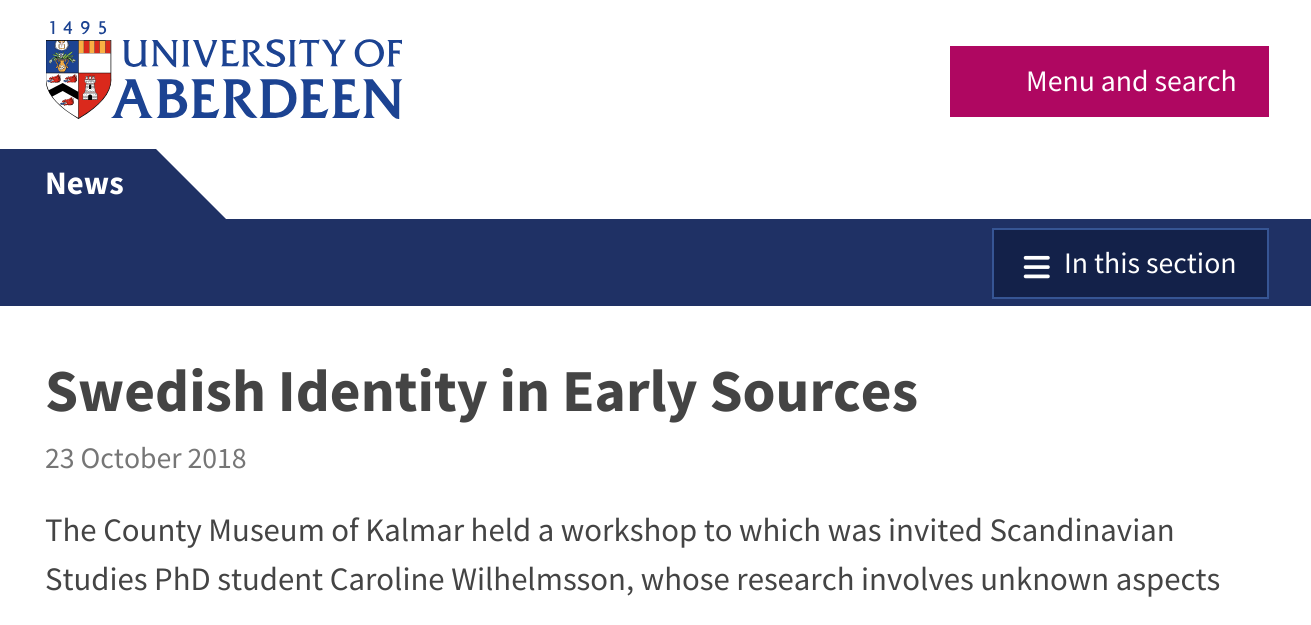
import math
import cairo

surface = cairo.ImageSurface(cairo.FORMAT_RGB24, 1311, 625)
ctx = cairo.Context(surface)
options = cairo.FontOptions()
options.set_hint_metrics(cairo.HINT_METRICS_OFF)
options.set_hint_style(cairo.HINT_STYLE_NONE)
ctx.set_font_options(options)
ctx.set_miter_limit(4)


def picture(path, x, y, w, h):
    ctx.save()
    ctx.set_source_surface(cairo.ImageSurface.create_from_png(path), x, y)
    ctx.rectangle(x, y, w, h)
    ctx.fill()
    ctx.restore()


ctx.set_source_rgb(1, 1, 1)
ctx.paint()
picture("img1.png", 46, 21, 357, 98)
ctx.set_source_rgb(0.686, 0.031, 0.38)
ctx.rectangle(950, 46, 319, 71)
ctx.fill()
ctx.select_font_face("Source Sans Pro")
ctx.set_font_size(29.75)
ctx.set_source_rgb(1, 1, 1)
ctx.move_to(1026, 91)
ctx.show_text("Menu and search")
ctx.save()
ctx.rectangle(0, 149, 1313, 70)
ctx.clip()
ctx.set_source_rgb(0.122, 0.192, 0.396)
ctx.new_path()
ctx.move_to(352, 345)
ctx.line_to(-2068, 345)
ctx.line_to(-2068, 149)
ctx.line_to(156, 149)
ctx.close_path()
ctx.fill()
ctx.restore()
ctx.select_font_face("Source Sans Pro", cairo.FONT_SLANT_NORMAL, cairo.FONT_WEIGHT_BOLD)
ctx.set_font_size(32.75)
ctx.move_to(45, 194)
ctx.show_text("News")
ctx.set_source_rgb(0.122, 0.192, 0.396)
ctx.rectangle(0, 219, 1311, 87)
ctx.fill()
ctx.set_source_rgb(0.078, 0.129, 0.286)
ctx.rectangle(993, 229, 275, 69)
ctx.fill_preserve()
ctx.set_source_rgb(0.212, 0.333, 0.58)
ctx.stroke()
picture("img2.png", 1023, 255, 27, 24)
ctx.select_font_face("Source Sans Pro")
ctx.set_font_size(29.75)
ctx.set_source_rgb(1, 1, 1)
ctx.move_to(1064, 273)
ctx.show_text("In this section")
ctx.select_font_face("Source Sans Pro", cairo.FONT_SLANT_NORMAL, cairo.FONT_WEIGHT_BOLD)
ctx.set_font_size(59.5)
ctx.set_source_rgb(0.267, 0.267, 0.267)
ctx.move_to(45, 411)
ctx.show_text("Swedish Identity in Early Sources")
ctx.select_font_face("Source Sans Pro")
ctx.set_font_size(29.75)
ctx.set_source_rgb(0.463, 0.463, 0.463)
ctx.move_to(45, 468)
ctx.show_text("23 October 2018")
ctx.set_font_size(32.75)
ctx.set_source_rgb(0.267, 0.267, 0.267)
ctx.move_to(45, 541)
ctx.show_text("The County Museum of Kalmar held a workshop to which was invited Scandinavian")
ctx.move_to(45, 590)
ctx.show_text("Studies PhD student Caroline Wilhelmsson, whose research involves unknown aspects")
surface.write_to_png("page.png")
